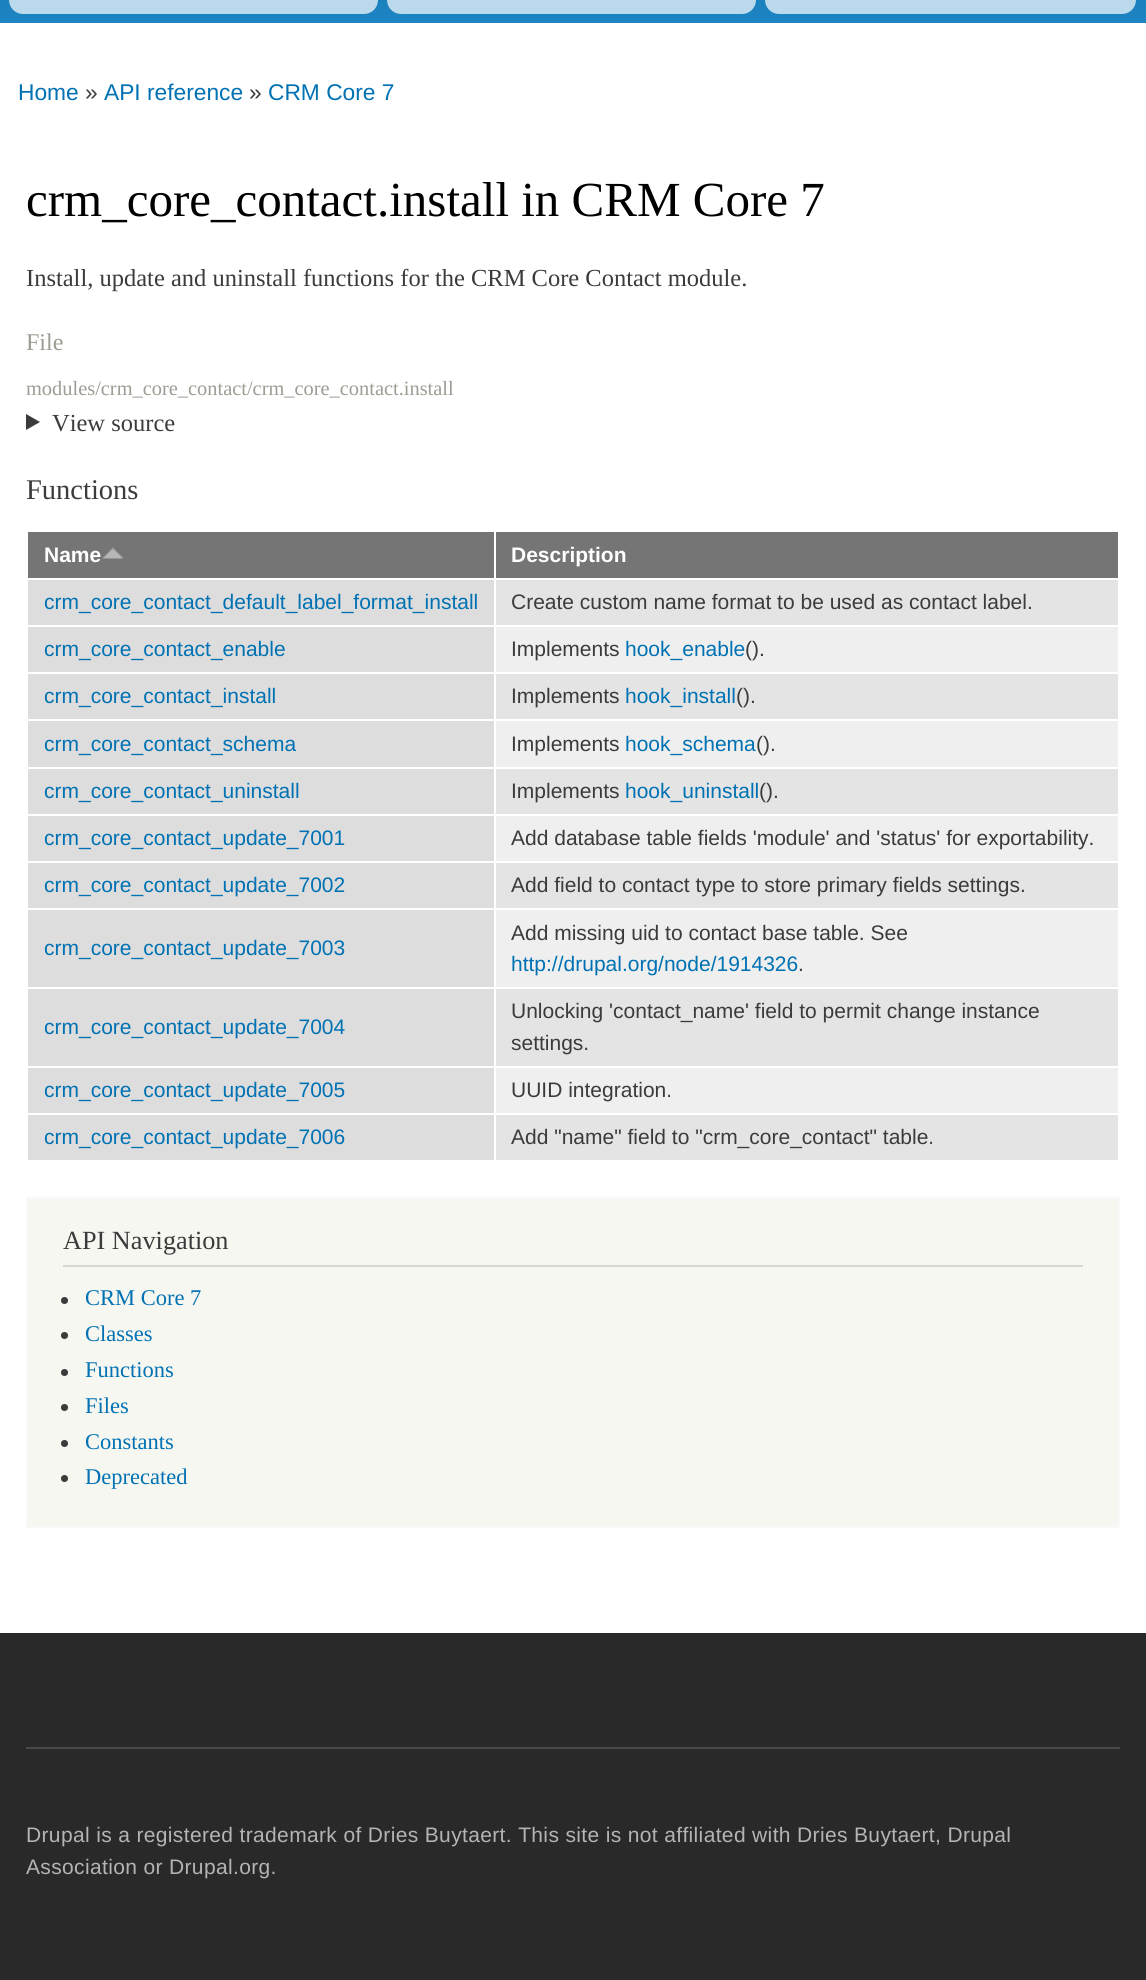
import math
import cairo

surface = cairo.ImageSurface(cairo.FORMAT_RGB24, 1146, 1980)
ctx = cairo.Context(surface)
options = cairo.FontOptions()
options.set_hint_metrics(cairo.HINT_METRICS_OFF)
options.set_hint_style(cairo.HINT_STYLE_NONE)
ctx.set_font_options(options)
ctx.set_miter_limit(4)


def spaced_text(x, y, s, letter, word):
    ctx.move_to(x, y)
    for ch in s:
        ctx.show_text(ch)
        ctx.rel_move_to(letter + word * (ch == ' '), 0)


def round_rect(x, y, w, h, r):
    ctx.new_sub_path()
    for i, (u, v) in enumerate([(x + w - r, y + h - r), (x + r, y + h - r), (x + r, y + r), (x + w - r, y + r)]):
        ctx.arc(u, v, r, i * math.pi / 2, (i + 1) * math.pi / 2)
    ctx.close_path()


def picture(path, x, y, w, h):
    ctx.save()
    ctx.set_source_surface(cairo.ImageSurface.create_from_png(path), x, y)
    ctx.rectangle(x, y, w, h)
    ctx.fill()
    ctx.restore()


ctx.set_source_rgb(1, 1, 1)
ctx.paint()
gradient = cairo.LinearGradient(573, -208, 573, 23)
gradient.add_color_stop_rgba(0, 0.02, 0.353, 0.557, 1)
gradient.add_color_stop_rgba(1, 0.114, 0.518, 0.765, 1)
ctx.set_source(gradient)
ctx.rectangle(0, 0, 1146, 23)
ctx.fill()
ctx.set_source_rgba(1, 1, 1, 0.7)
round_rect(9, -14, 369, 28, 14)
ctx.fill()
round_rect(387, -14, 369, 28, 14)
ctx.fill()
round_rect(765, -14, 371, 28, 14)
ctx.fill()
ctx.select_font_face("Liberation Sans")
ctx.set_font_size(22.75)
ctx.set_source_rgb(0, 0.443, 0.702)
ctx.move_to(18, 100)
ctx.show_text("Home")
ctx.set_source_rgb(0.231, 0.231, 0.231)
ctx.move_to(85, 100)
ctx.show_text("»")
ctx.set_source_rgb(0, 0.443, 0.702)
ctx.move_to(104, 100)
ctx.show_text("API reference")
ctx.set_source_rgb(0.231, 0.231, 0.231)
ctx.move_to(249, 100)
ctx.show_text("»")
ctx.set_source_rgb(0, 0.443, 0.702)
ctx.move_to(268, 100)
ctx.show_text("CRM Core 7")
ctx.select_font_face("Liberation Serif")
ctx.set_font_size(49)
ctx.set_source_rgb(0, 0, 0)
ctx.move_to(26, 216)
ctx.show_text("crm_core_contact.install in CRM Core 7")
ctx.set_font_size(24.5)
ctx.set_source_rgb(0.231, 0.231, 0.231)
ctx.move_to(26, 286)
ctx.show_text("Install, update and uninstall functions for the CRM Core Contact module.")
ctx.set_font_size(24)
ctx.set_source_rgb(0.616, 0.616, 0.576)
ctx.move_to(26, 350)
ctx.show_text("File")
ctx.set_font_size(20.4)
ctx.move_to(26, 395)
ctx.show_text("modules/crm_core_contact/crm_core_contact.install")
ctx.set_source_rgb(0.231, 0.231, 0.231)
ctx.new_path()
ctx.move_to(26, 414)
ctx.line_to(40, 422)
ctx.line_to(26, 430)
ctx.close_path()
ctx.fill()
ctx.set_font_size(24.5)
ctx.move_to(52, 431)
ctx.show_text("View source")
ctx.set_font_size(28.5)
ctx.move_to(26, 499)
ctx.show_text("Functions")
ctx.set_source_rgb(0.459, 0.459, 0.459)
ctx.rectangle(28, 532, 466, 46)
ctx.fill()
ctx.select_font_face("Liberation Sans", cairo.FONT_SLANT_NORMAL, cairo.FONT_WEIGHT_BOLD)
ctx.set_font_size(21)
ctx.set_source_rgb(1, 1, 1)
ctx.move_to(44, 562)
ctx.show_text("Name")
picture("img1.png", 102, 547, 21, 12)
ctx.set_source_rgb(0.459, 0.459, 0.459)
ctx.rectangle(496, 532, 622, 46)
ctx.fill()
ctx.set_source_rgb(1, 1, 1)
ctx.move_to(511, 562)
ctx.show_text("Description")
ctx.set_source_rgb(0.894, 0.894, 0.894)
ctx.rectangle(496, 580, 622, 45)
ctx.fill()
ctx.set_source_rgb(0.867, 0.867, 0.867)
ctx.rectangle(28, 580, 466, 45)
ctx.fill()
ctx.select_font_face("Liberation Sans")
ctx.set_source_rgb(0, 0.443, 0.702)
ctx.move_to(44, 609)
ctx.show_text("crm_core_contact_default_label_format_install")
ctx.set_source_rgb(0.231, 0.231, 0.231)
ctx.move_to(511, 609)
ctx.show_text("Create custom name format to be used as contact label.")
ctx.set_source_rgb(0.937, 0.937, 0.937)
ctx.rectangle(496, 627, 622, 45)
ctx.fill()
ctx.set_source_rgb(0.867, 0.867, 0.867)
ctx.rectangle(28, 627, 466, 45)
ctx.fill()
ctx.set_source_rgb(0, 0.443, 0.702)
ctx.move_to(44, 656)
ctx.show_text("crm_core_contact_enable")
ctx.set_source_rgb(0.231, 0.231, 0.231)
ctx.move_to(511, 656)
ctx.show_text("Implements")
ctx.set_source_rgb(0, 0.443, 0.702)
ctx.move_to(625, 656)
ctx.show_text("hook_enable")
ctx.set_source_rgb(0.231, 0.231, 0.231)
ctx.move_to(745, 656)
ctx.show_text("().")
ctx.set_source_rgb(0.894, 0.894, 0.894)
ctx.rectangle(496, 674, 622, 45)
ctx.fill()
ctx.set_source_rgb(0.867, 0.867, 0.867)
ctx.rectangle(28, 674, 466, 45)
ctx.fill()
ctx.set_source_rgb(0, 0.443, 0.702)
ctx.move_to(44, 703)
ctx.show_text("crm_core_contact_install")
ctx.set_source_rgb(0.231, 0.231, 0.231)
ctx.move_to(511, 703)
ctx.show_text("Implements")
ctx.set_source_rgb(0, 0.443, 0.702)
ctx.move_to(625, 703)
ctx.show_text("hook_install")
ctx.set_source_rgb(0.231, 0.231, 0.231)
ctx.move_to(736, 703)
ctx.show_text("().")
ctx.set_source_rgb(0.937, 0.937, 0.937)
ctx.rectangle(496, 721, 622, 46)
ctx.fill()
ctx.set_source_rgb(0.867, 0.867, 0.867)
ctx.rectangle(28, 721, 466, 46)
ctx.fill()
ctx.set_source_rgb(0, 0.443, 0.702)
ctx.move_to(44, 751)
ctx.show_text("crm_core_contact_schema")
ctx.set_source_rgb(0.231, 0.231, 0.231)
ctx.move_to(511, 751)
ctx.show_text("Implements")
ctx.set_source_rgb(0, 0.443, 0.702)
ctx.move_to(625, 751)
ctx.show_text("hook_schema")
ctx.set_source_rgb(0.231, 0.231, 0.231)
ctx.move_to(756, 751)
ctx.show_text("().")
ctx.set_source_rgb(0.894, 0.894, 0.894)
ctx.rectangle(496, 769, 622, 45)
ctx.fill()
ctx.set_source_rgb(0.867, 0.867, 0.867)
ctx.rectangle(28, 769, 466, 45)
ctx.fill()
ctx.set_source_rgb(0, 0.443, 0.702)
ctx.move_to(44, 798)
ctx.show_text("crm_core_contact_uninstall")
ctx.set_source_rgb(0.231, 0.231, 0.231)
ctx.move_to(511, 798)
ctx.show_text("Implements")
ctx.set_source_rgb(0, 0.443, 0.702)
ctx.move_to(625, 798)
ctx.show_text("hook_uninstall")
ctx.set_source_rgb(0.231, 0.231, 0.231)
ctx.move_to(759, 798)
ctx.show_text("().")
ctx.set_source_rgb(0.937, 0.937, 0.937)
ctx.rectangle(496, 816, 622, 45)
ctx.fill()
ctx.set_source_rgb(0.867, 0.867, 0.867)
ctx.rectangle(28, 816, 466, 45)
ctx.fill()
ctx.set_source_rgb(0, 0.443, 0.702)
ctx.move_to(44, 845)
ctx.show_text("crm_core_contact_update_7001")
ctx.set_source_rgb(0.231, 0.231, 0.231)
ctx.move_to(511, 845)
ctx.show_text("Add database table fields 'module' and 'status' for exportability.")
ctx.set_source_rgb(0.894, 0.894, 0.894)
ctx.rectangle(496, 863, 622, 45)
ctx.fill()
ctx.set_source_rgb(0.867, 0.867, 0.867)
ctx.rectangle(28, 863, 466, 45)
ctx.fill()
ctx.set_source_rgb(0, 0.443, 0.702)
ctx.move_to(44, 892)
ctx.show_text("crm_core_contact_update_7002")
ctx.set_source_rgb(0.231, 0.231, 0.231)
ctx.move_to(511, 892)
ctx.show_text("Add field to contact type to store primary fields settings.")
ctx.set_source_rgb(0.937, 0.937, 0.937)
ctx.rectangle(496, 910, 622, 77)
ctx.fill()
ctx.set_source_rgb(0.867, 0.867, 0.867)
ctx.rectangle(28, 910, 466, 77)
ctx.fill()
ctx.set_source_rgb(0, 0.443, 0.702)
ctx.move_to(44, 955)
ctx.show_text("crm_core_contact_update_7003")
ctx.set_source_rgb(0.231, 0.231, 0.231)
ctx.move_to(511, 940)
ctx.show_text("Add missing uid to contact base table. See")
ctx.set_source_rgb(0, 0.443, 0.702)
ctx.move_to(511, 971)
ctx.show_text("http://drupal.org/node/1914326")
ctx.set_source_rgb(0.231, 0.231, 0.231)
ctx.move_to(798, 971)
ctx.show_text(".")
ctx.set_source_rgb(0.894, 0.894, 0.894)
ctx.rectangle(496, 989, 622, 77)
ctx.fill()
ctx.set_source_rgb(0.867, 0.867, 0.867)
ctx.rectangle(28, 989, 466, 77)
ctx.fill()
ctx.set_source_rgb(0, 0.443, 0.702)
ctx.move_to(44, 1034)
ctx.show_text("crm_core_contact_update_7004")
ctx.set_source_rgb(0.231, 0.231, 0.231)
ctx.move_to(511, 1018)
ctx.show_text("Unlocking 'contact_name' field to permit change instance")
ctx.move_to(511, 1050)
ctx.show_text("settings.")
ctx.set_source_rgb(0.937, 0.937, 0.937)
ctx.rectangle(496, 1068, 622, 45)
ctx.fill()
ctx.set_source_rgb(0.867, 0.867, 0.867)
ctx.rectangle(28, 1068, 466, 45)
ctx.fill()
ctx.set_source_rgb(0, 0.443, 0.702)
ctx.move_to(44, 1097)
ctx.show_text("crm_core_contact_update_7005")
ctx.set_source_rgb(0.231, 0.231, 0.231)
ctx.move_to(511, 1097)
ctx.show_text("UUID integration.")
ctx.set_source_rgb(0.894, 0.894, 0.894)
ctx.rectangle(496, 1115, 622, 45)
ctx.fill()
ctx.set_source_rgb(0.867, 0.867, 0.867)
ctx.rectangle(28, 1115, 466, 45)
ctx.fill()
ctx.set_source_rgb(0, 0.443, 0.702)
ctx.move_to(44, 1144)
ctx.show_text("crm_core_contact_update_7006")
ctx.set_source_rgb(0.231, 0.231, 0.231)
ctx.move_to(511, 1144)
ctx.show_text("Add \"name\" field to \"crm_core_contact\" table.")
ctx.set_source_rgb(0.965, 0.965, 0.949)
ctx.rectangle(27, 1198, 1092, 329)
ctx.fill_preserve()
ctx.set_source_rgb(0.976, 0.976, 0.976)
ctx.stroke()
ctx.set_source_rgb(0.839, 0.839, 0.839)
ctx.rectangle(63, 1265, 1020, 2)
ctx.fill()
ctx.select_font_face("Liberation Serif")
ctx.set_font_size(26.25)
ctx.set_source_rgb(0.231, 0.231, 0.231)
ctx.move_to(63, 1249)
ctx.show_text("API Navigation")
ctx.new_path()
ctx.arc(64.5, 1300.5, 3.5, 0, 2 * math.pi)
ctx.fill()
ctx.set_font_size(22.5)
ctx.set_source_rgb(0, 0.443, 0.702)
ctx.move_to(85, 1305)
ctx.show_text("CRM Core 7")
ctx.set_source_rgb(0.231, 0.231, 0.231)
ctx.new_path()
ctx.arc(64.5, 1335.5, 3.5, 0, 2 * math.pi)
ctx.fill()
ctx.set_source_rgb(0, 0.443, 0.702)
ctx.move_to(85, 1341)
ctx.show_text("Classes")
ctx.set_source_rgb(0.231, 0.231, 0.231)
ctx.new_path()
ctx.arc(64.5, 1372.5, 3.5, 0, 2 * math.pi)
ctx.fill()
ctx.set_source_rgb(0, 0.443, 0.702)
ctx.move_to(85, 1377)
ctx.show_text("Functions")
ctx.set_source_rgb(0.231, 0.231, 0.231)
ctx.new_path()
ctx.arc(64.5, 1407.5, 3.5, 0, 2 * math.pi)
ctx.fill()
ctx.set_source_rgb(0, 0.443, 0.702)
ctx.move_to(85, 1413)
ctx.show_text("Files")
ctx.set_source_rgb(0.231, 0.231, 0.231)
ctx.new_path()
ctx.arc(64.5, 1443.5, 3.5, 0, 2 * math.pi)
ctx.fill()
ctx.set_source_rgb(0, 0.443, 0.702)
ctx.move_to(85, 1449)
ctx.show_text("Constants")
ctx.set_source_rgb(0.231, 0.231, 0.231)
ctx.new_path()
ctx.arc(64.5, 1478.5, 3.5, 0, 2 * math.pi)
ctx.fill()
ctx.set_source_rgb(0, 0.443, 0.702)
ctx.move_to(85, 1484)
ctx.show_text("Deprecated")
ctx.set_source_rgb(0.161, 0.161, 0.161)
ctx.rectangle(0, 1633, 1146, 347)
ctx.fill()
ctx.set_source_rgb(0.286, 0.286, 0.286)
ctx.rectangle(26, 1747, 1094, 2)
ctx.fill()
ctx.select_font_face("Liberation Sans")
ctx.set_font_size(21)
ctx.set_source_rgb(0.706, 0.706, 0.706)
spaced_text(26, 1842, "Drupal is a registered trademark of Dries Buytaert. This site is not affiliated with Dries Buytaert, Drupal", 0.35, 0)
spaced_text(26, 1874, "Association or Drupal.org.", 0.35, 0)
surface.write_to_png("page.png")
